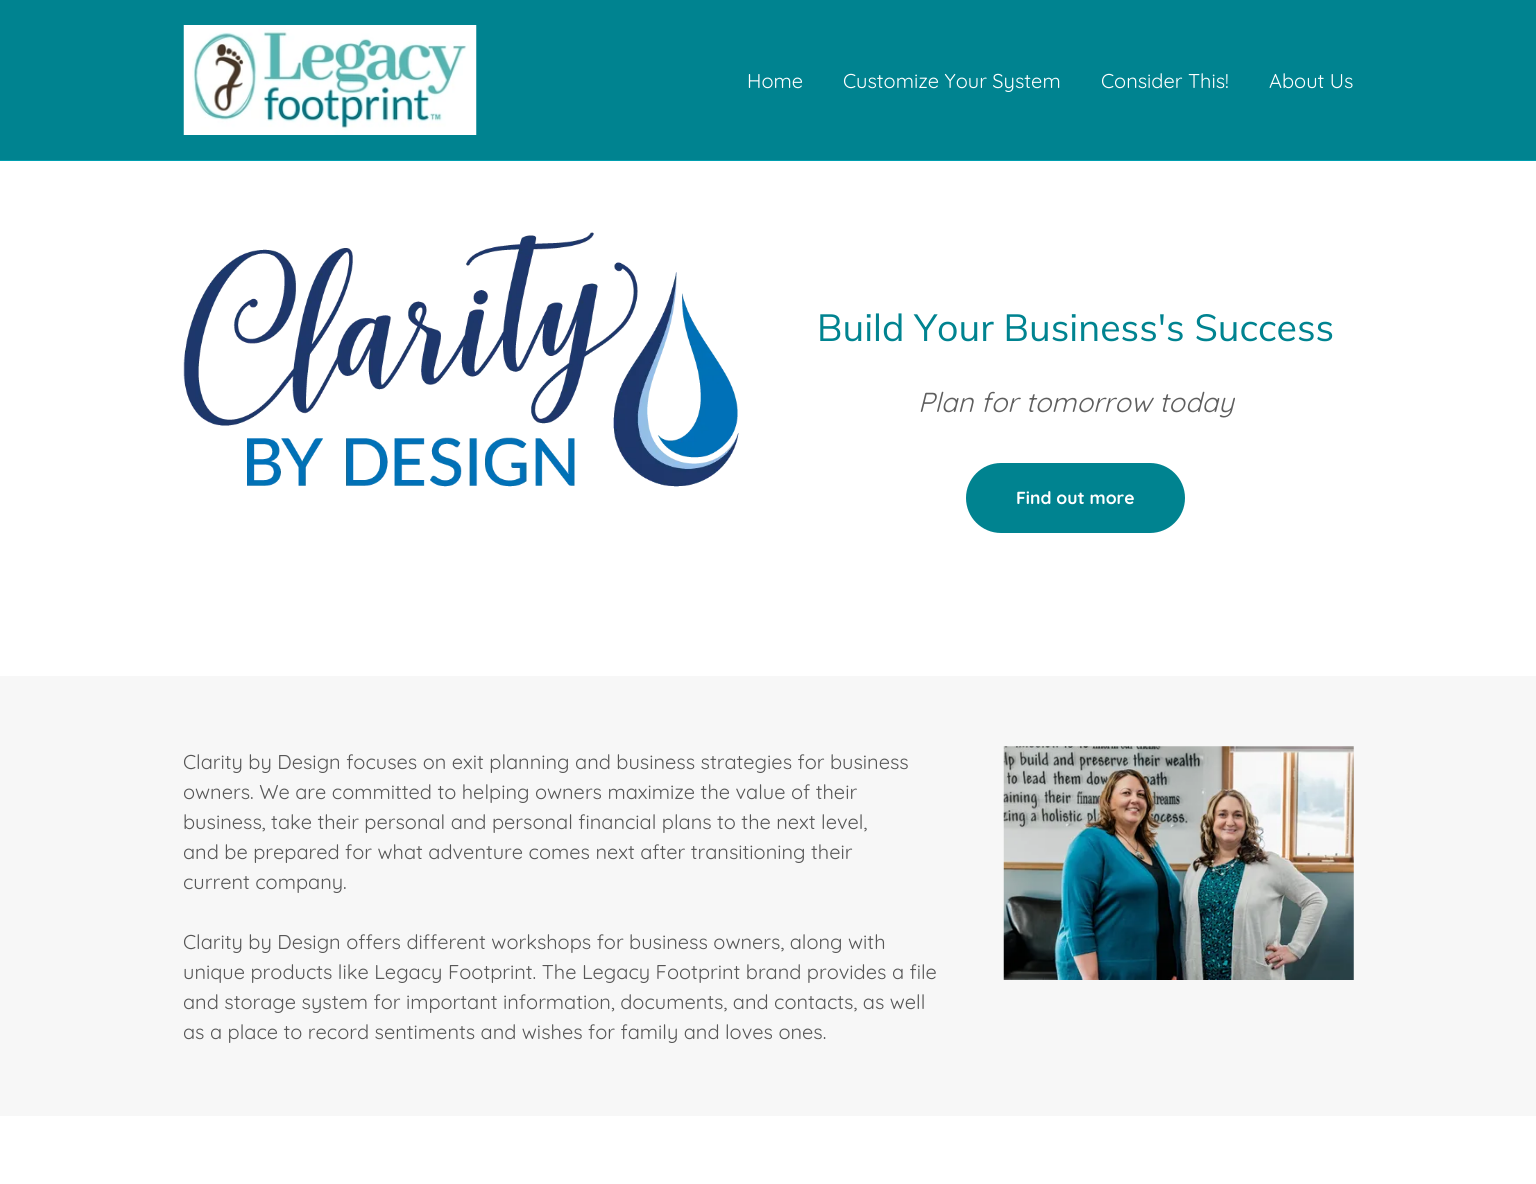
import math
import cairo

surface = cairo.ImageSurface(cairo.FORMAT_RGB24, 1536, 1184)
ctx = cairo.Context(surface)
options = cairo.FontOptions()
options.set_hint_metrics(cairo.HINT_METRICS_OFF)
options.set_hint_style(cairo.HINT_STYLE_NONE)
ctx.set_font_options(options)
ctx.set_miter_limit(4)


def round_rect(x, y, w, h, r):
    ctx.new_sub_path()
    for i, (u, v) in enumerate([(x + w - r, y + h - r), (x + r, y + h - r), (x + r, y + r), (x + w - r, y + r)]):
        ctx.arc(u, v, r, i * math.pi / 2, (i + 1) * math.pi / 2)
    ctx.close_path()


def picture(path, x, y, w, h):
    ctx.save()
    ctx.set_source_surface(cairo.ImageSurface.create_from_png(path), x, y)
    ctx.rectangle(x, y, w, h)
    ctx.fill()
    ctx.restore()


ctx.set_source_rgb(1, 1, 1)
ctx.paint()
ctx.set_source_rgb(0, 0.514, 0.565)
ctx.rectangle(0, 0, 1536, 160)
ctx.fill()
picture("img1.png", 183, 25, 294, 110)
ctx.select_font_face("Quicksand")
ctx.set_font_size(20)
ctx.set_source_rgb(1, 1, 1)
ctx.move_to(747, 88)
ctx.show_text("Home")
ctx.move_to(843, 88)
ctx.show_text("Customize Your System")
ctx.move_to(1101, 88)
ctx.show_text("Consider This!")
ctx.move_to(1269, 88)
ctx.show_text("About Us")
ctx.set_source_rgb(0, 0.624, 0.686)
ctx.rectangle(0, 160, 1536, 1)
ctx.fill()
picture("img2.png", 183, 232, 556, 255)
ctx.select_font_face("Muli")
ctx.set_font_size(37.5)
ctx.set_source_rgb(0, 0.514, 0.565)
ctx.move_to(817, 341)
ctx.show_text("Build Your Business's Success")
ctx.select_font_face("Quicksand", cairo.FONT_SLANT_ITALIC)
ctx.set_font_size(27.5)
ctx.set_source_rgb(0.369, 0.369, 0.369)
ctx.move_to(918, 412)
ctx.show_text("Plan for tomorrow today")
ctx.set_source_rgb(0, 0.514, 0.565)
round_rect(966, 463, 219, 70, 35)
ctx.fill()
ctx.select_font_face("Quicksand", cairo.FONT_SLANT_NORMAL, cairo.FONT_WEIGHT_BOLD)
ctx.set_font_size(17.5)
ctx.set_source_rgb(1, 1, 1)
ctx.move_to(1016, 504)
ctx.show_text("Find out more")
ctx.set_source_rgb(0.965, 0.965, 0.965)
ctx.rectangle(0, 676, 1536, 440)
ctx.fill()
ctx.select_font_face("Quicksand")
ctx.set_font_size(20)
ctx.set_source_rgb(0.341, 0.341, 0.341)
ctx.move_to(183, 769)
ctx.show_text("Clarity by Design focuses on exit planning and business strategies for business")
ctx.move_to(183, 799)
ctx.show_text("owners. We are committed to helping owners maximize the value of their")
ctx.move_to(183, 829)
ctx.show_text("business, take their personal and personal financial plans to the next level,")
ctx.move_to(183, 859)
ctx.show_text("and be prepared for what adventure comes next after transitioning their")
ctx.move_to(183, 889)
ctx.show_text("current company.")
ctx.move_to(183, 949)
ctx.show_text("Clarity by Design offers different workshops for business owners, along with")
ctx.move_to(183, 979)
ctx.show_text("unique products like Legacy Footprint. The Legacy Footprint brand provides a file")
ctx.move_to(183, 1009)
ctx.show_text("and storage system for important information, documents, and contacts, as well")
ctx.move_to(183, 1039)
ctx.show_text("as a place to record sentiments and wishes for family and loves ones.")
picture("img3.png", 1003, 746, 351, 234)
surface.write_to_png("page.png")
